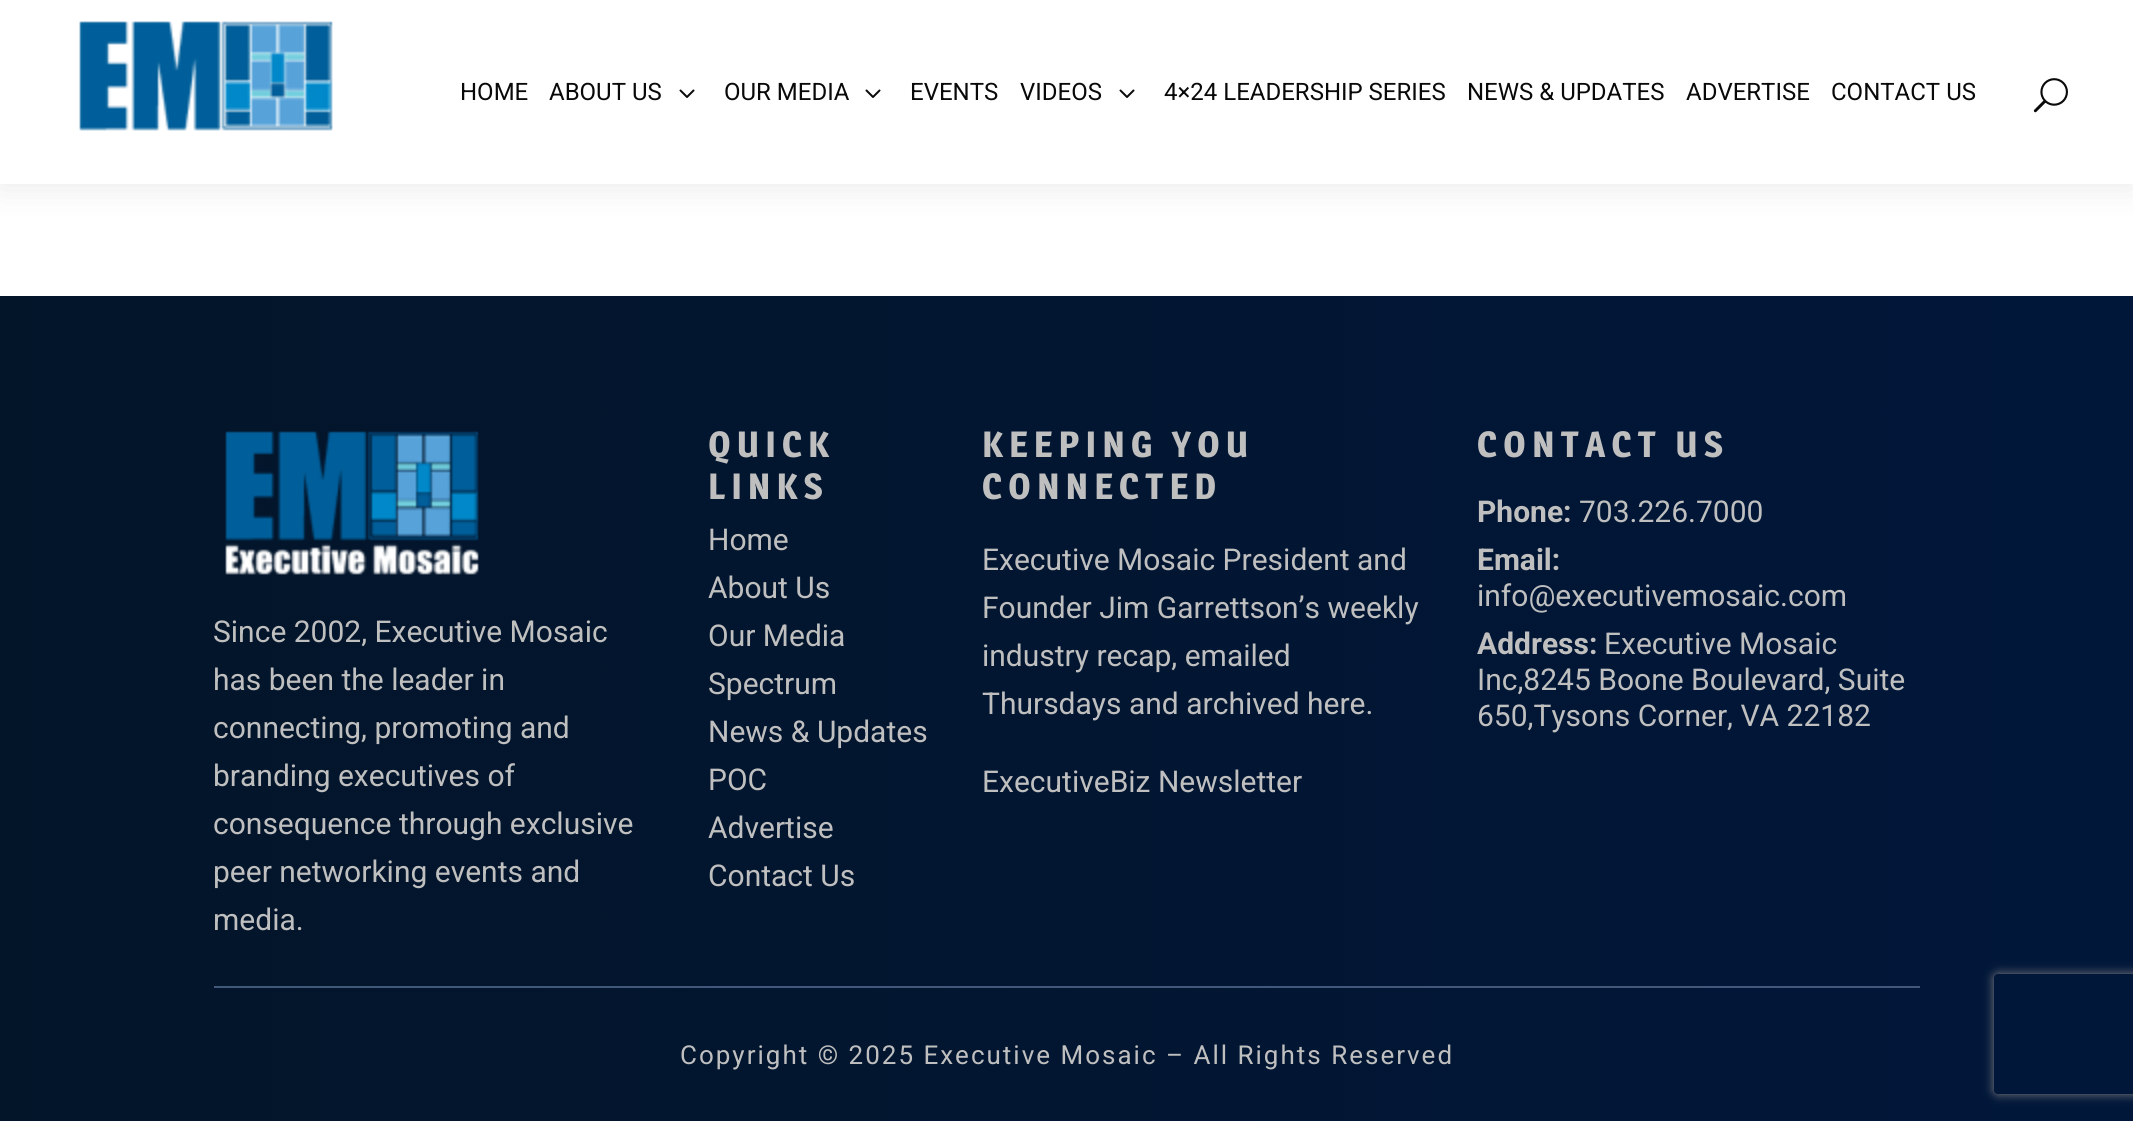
import math
import cairo

surface = cairo.ImageSurface(cairo.FORMAT_RGB24, 2133, 1121)
ctx = cairo.Context(surface)
options = cairo.FontOptions()
options.set_hint_metrics(cairo.HINT_METRICS_OFF)
options.set_hint_style(cairo.HINT_STYLE_NONE)
ctx.set_font_options(options)
ctx.set_miter_limit(4)


def spaced_text(x, y, s, letter, word):
    ctx.move_to(x, y)
    for ch in s:
        ctx.show_text(ch)
        ctx.rel_move_to(letter + word * (ch == ' '), 0)


def round_rect(x, y, w, h, r):
    ctx.new_sub_path()
    for i, (u, v) in enumerate([(x + w - r, y + h - r), (x + r, y + h - r), (x + r, y + r), (x + w - r, y + r)]):
        ctx.arc(u, v, r, i * math.pi / 2, (i + 1) * math.pi / 2)
    ctx.close_path()


def shadow(x, y, w, h, r, blur, alpha):
    ctx.push_group_with_content(cairo.CONTENT_ALPHA)
    ctx.set_operator(cairo.OPERATOR_SOURCE)
    for i in range(15, -16, -2):
        e = blur * i / 6
        if min(w, h) + 2 * e > 0:
            ctx.set_source_rgba(0, 0, 0, alpha * math.erfc((i - 1) / 8.5) / 2)
            round_rect(x - e, y - e, w + 2 * e, h + 2 * e, max(0, min(r + e + blur * .6, min(w, h) / 2 + e)))
            ctx.fill()
    ctx.mask(ctx.pop_group())


def picture(path, x, y, w, h):
    ctx.save()
    ctx.set_source_surface(cairo.ImageSurface.create_from_png(path), x, y)
    ctx.rectangle(x, y, w, h)
    ctx.fill()
    ctx.restore()


ctx.set_source_rgb(1, 1, 1)
ctx.paint()
ctx.set_source_rgb(0, 0, 0)
shadow(0, 0, 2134, 184, 0, 18, 0.1)
ctx.set_source_rgb(1, 1, 1)
ctx.rectangle(0, 0, 2133, 184)
ctx.fill()
picture("img1.png", 79, 21, 254, 110)
ctx.select_font_face("Roboto")
ctx.set_font_size(24)
ctx.set_source_rgb(0.039, 0.039, 0.039)
ctx.move_to(460, 100)
ctx.show_text("HOME")
ctx.move_to(549, 100)
ctx.show_text("ABOUT US")
picture("img2.png", 679, 89, 16, 9)
ctx.move_to(724, 100)
ctx.show_text("OUR MEDIA")
picture("img2.png", 865, 89, 16, 9)
ctx.move_to(910, 100)
ctx.show_text("EVENTS")
ctx.move_to(1020, 100)
ctx.show_text("VIDEOS")
picture("img2.png", 1119, 89, 16, 9)
ctx.move_to(1164, 100)
ctx.show_text("4×24 LEADERSHIP SERIES")
ctx.move_to(1467, 100)
ctx.show_text("NEWS & UPDATES")
ctx.move_to(1686, 100)
ctx.show_text("ADVERTISE")
ctx.move_to(1831, 100)
ctx.show_text("CONTACT US")
picture("img3.png", 2033, 78, 35, 35)
picture("img4.png", 0, 296, 2133, 825)
ctx.select_font_face("Magra", cairo.FONT_SLANT_NORMAL, cairo.FONT_WEIGHT_BOLD)
ctx.set_font_size(36)
ctx.set_source_rgb(0.749, 0.749, 0.749)
spaced_text(708, 457, "QUICK", 6, 0)
spaced_text(708, 499, "LINKS", 6, 0)
ctx.select_font_face("Roboto")
ctx.set_font_size(30)
ctx.move_to(708, 550)
ctx.show_text("Home")
ctx.move_to(708, 598)
ctx.show_text("About Us")
ctx.move_to(708, 646)
ctx.show_text("Our Media")
ctx.move_to(708, 694)
ctx.show_text("Spectrum")
ctx.move_to(708, 742)
ctx.show_text("News & Updates")
ctx.move_to(708, 790)
ctx.show_text("POC")
ctx.move_to(708, 838)
ctx.show_text("Advertise")
ctx.move_to(708, 886)
ctx.show_text("Contact Us")
ctx.select_font_face("Magra", cairo.FONT_SLANT_NORMAL, cairo.FONT_WEIGHT_BOLD)
ctx.set_font_size(36)
spaced_text(982, 457, "KEEPING YOU", 6, 0)
spaced_text(982, 499, "CONNECTED", 6, 0)
ctx.select_font_face("Roboto")
ctx.set_font_size(30)
ctx.move_to(982, 570)
ctx.show_text("Executive Mosaic President and")
ctx.move_to(982, 618)
ctx.show_text("Founder Jim Garrettson’s weekly")
ctx.move_to(982, 666)
ctx.show_text("industry recap, emailed")
ctx.move_to(982, 714)
ctx.show_text("Thursdays and archived here.")
ctx.move_to(982, 792)
ctx.show_text("ExecutiveBiz Newsletter")
ctx.select_font_face("Magra", cairo.FONT_SLANT_NORMAL, cairo.FONT_WEIGHT_BOLD)
ctx.set_font_size(36)
spaced_text(1477, 457, "CONTACT US", 6, 0)
ctx.select_font_face("Roboto", cairo.FONT_SLANT_NORMAL, cairo.FONT_WEIGHT_BOLD)
ctx.set_font_size(30)
ctx.move_to(1477, 522)
ctx.show_text("Phone:")
ctx.select_font_face("Roboto")
ctx.move_to(1579, 522)
ctx.show_text("703.226.7000")
ctx.select_font_face("Roboto", cairo.FONT_SLANT_NORMAL, cairo.FONT_WEIGHT_BOLD)
ctx.move_to(1477, 570)
ctx.show_text("Email:")
ctx.select_font_face("Roboto")
ctx.move_to(1477, 606)
ctx.show_text("info@executivemosaic.com")
ctx.select_font_face("Roboto", cairo.FONT_SLANT_NORMAL, cairo.FONT_WEIGHT_BOLD)
ctx.move_to(1477, 654)
ctx.show_text("Address:")
ctx.select_font_face("Roboto")
ctx.move_to(1604, 654)
ctx.show_text("Executive Mosaic")
ctx.move_to(1477, 690)
ctx.show_text("Inc,8245 Boone Boulevard, Suite")
ctx.move_to(1477, 726)
ctx.show_text("650,Tysons Corner, VA 22182")
picture("img5.png", 225, 431, 254, 144)
ctx.move_to(213, 642)
ctx.show_text("Since 2002, Executive Mosaic")
ctx.move_to(213, 690)
ctx.show_text("has been the leader in")
ctx.move_to(213, 738)
ctx.show_text("connecting, promoting and")
ctx.move_to(213, 786)
ctx.show_text("branding executives of")
ctx.move_to(213, 834)
ctx.show_text("consequence through exclusive")
ctx.move_to(213, 882)
ctx.show_text("peer networking events and")
ctx.move_to(213, 930)
ctx.show_text("media.")
ctx.set_source_rgb(0.255, 0.345, 0.482)
ctx.rectangle(214, 986, 1706, 2)
ctx.fill()
ctx.set_font_size(26)
ctx.set_source_rgb(0.749, 0.749, 0.749)
spaced_text(680, 1064, "Copyright © 2025 Executive Mosaic – All Rights Reserved", 2, 0)
ctx.save()
ctx.set_fill_rule(cairo.FILL_RULE_EVEN_ODD)
ctx.new_path()
ctx.move_to(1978, 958)
ctx.line_to(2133, 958)
ctx.line_to(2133, 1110)
ctx.line_to(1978, 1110)
ctx.close_path()
ctx.move_to(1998, 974)
ctx.line_to(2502, 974)
ctx.curve_to(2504, 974, 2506, 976, 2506, 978)
ctx.line_to(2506, 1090)
ctx.curve_to(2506, 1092, 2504, 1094, 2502, 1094)
ctx.line_to(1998, 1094)
ctx.curve_to(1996, 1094, 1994, 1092, 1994, 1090)
ctx.line_to(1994, 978)
ctx.curve_to(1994, 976, 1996, 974, 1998, 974)
ctx.close_path()
ctx.clip()
ctx.set_source_rgb(0.502, 0.502, 0.502)
shadow(1994, 974, 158, 120, 4, 5, 1)
ctx.restore()
surface.write_to_png("page.png")
